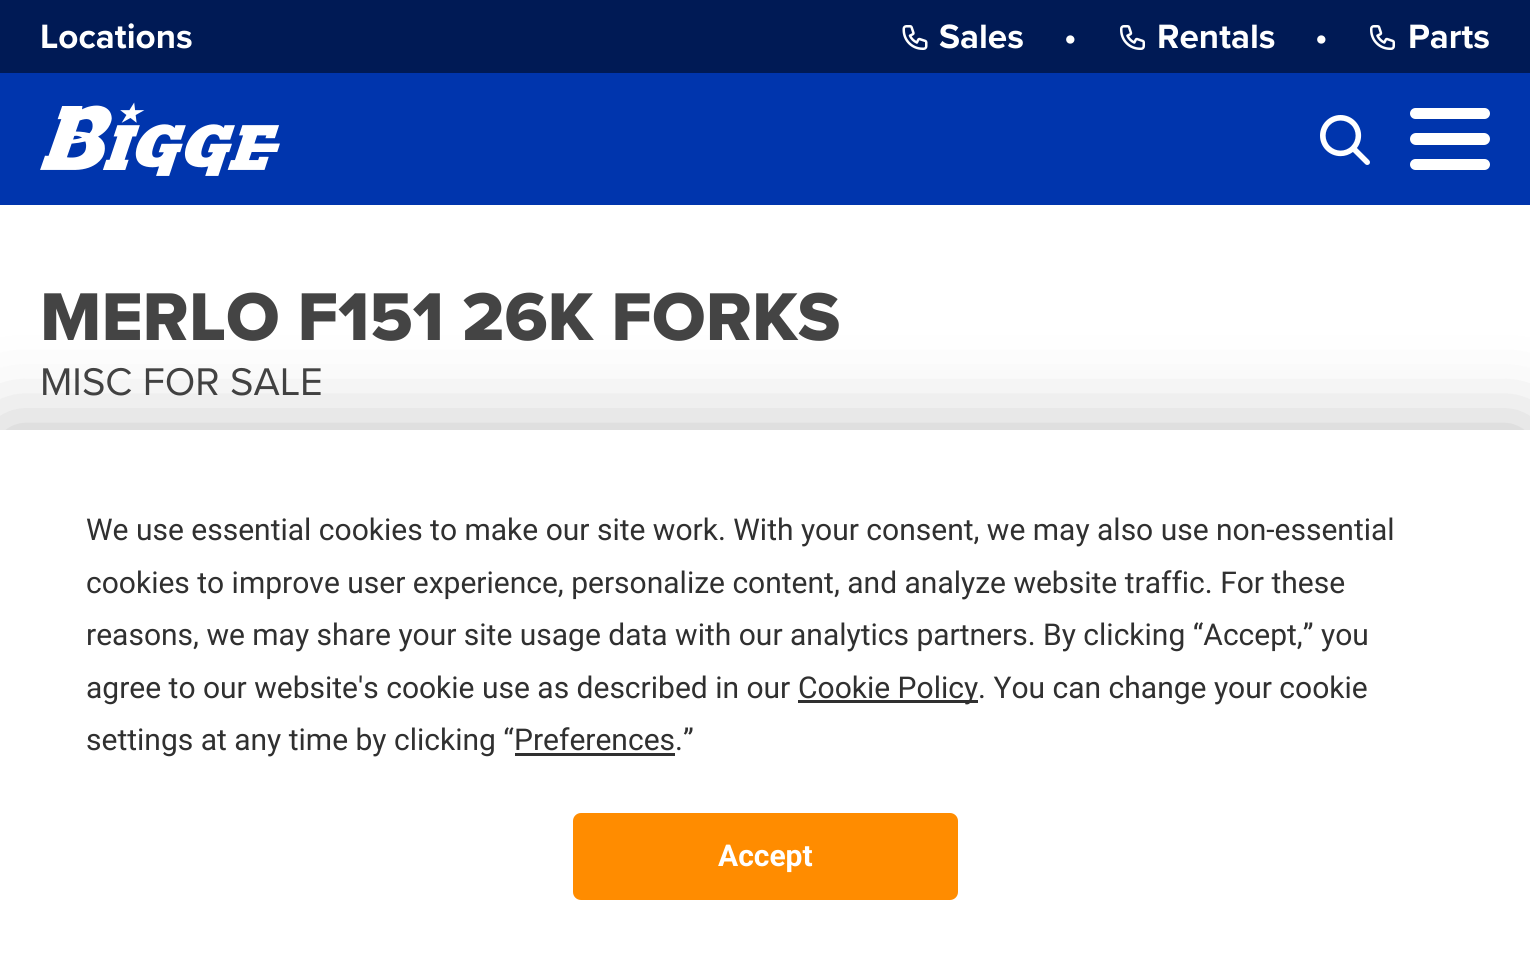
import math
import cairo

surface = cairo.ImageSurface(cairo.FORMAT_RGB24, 1530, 974)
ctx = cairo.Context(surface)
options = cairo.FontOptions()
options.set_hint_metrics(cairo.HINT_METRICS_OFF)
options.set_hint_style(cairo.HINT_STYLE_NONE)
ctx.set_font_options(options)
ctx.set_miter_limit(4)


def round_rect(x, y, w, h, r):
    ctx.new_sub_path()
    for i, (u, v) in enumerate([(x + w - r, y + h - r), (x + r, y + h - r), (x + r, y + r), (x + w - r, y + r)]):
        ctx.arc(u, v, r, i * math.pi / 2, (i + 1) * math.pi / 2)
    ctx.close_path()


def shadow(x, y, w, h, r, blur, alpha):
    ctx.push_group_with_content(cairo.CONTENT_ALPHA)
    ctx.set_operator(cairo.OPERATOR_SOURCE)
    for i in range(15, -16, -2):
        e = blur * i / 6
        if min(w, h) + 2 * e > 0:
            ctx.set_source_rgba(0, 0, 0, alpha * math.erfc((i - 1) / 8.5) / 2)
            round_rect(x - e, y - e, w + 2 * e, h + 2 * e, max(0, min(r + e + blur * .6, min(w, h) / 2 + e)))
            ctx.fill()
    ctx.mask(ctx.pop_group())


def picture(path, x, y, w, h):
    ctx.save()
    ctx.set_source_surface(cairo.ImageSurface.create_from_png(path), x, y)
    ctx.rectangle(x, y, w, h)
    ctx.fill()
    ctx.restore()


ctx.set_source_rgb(1, 1, 1)
ctx.paint()
ctx.set_source_rgb(0, 0.102, 0.333)
ctx.rectangle(0, 0, 1530, 73)
ctx.fill()
ctx.select_font_face("Proxima Nova", cairo.FONT_SLANT_NORMAL, cairo.FONT_WEIGHT_BOLD)
ctx.set_font_size(35)
ctx.set_source_rgb(1, 1, 1)
ctx.move_to(40, 48)
ctx.show_text("Locations")
picture("img1.png", 902, 25, 26, 25)
ctx.move_to(939, 48)
ctx.show_text("Sales")
ctx.move_to(1064, 48)
ctx.show_text("•")
picture("img2.png", 1120, 25, 25, 25)
ctx.move_to(1157, 48)
ctx.show_text("Rentals")
ctx.move_to(1315, 48)
ctx.show_text("•")
picture("img2.png", 1370, 25, 25, 25)
ctx.move_to(1408, 48)
ctx.show_text("Parts")
ctx.set_source_rgb(0, 0.208, 0.678)
ctx.rectangle(0, 73, 1530, 132)
ctx.fill()
picture("img3.png", 40, 102, 240, 74)
picture("img4.png", 1320, 115, 50, 50)
ctx.set_source_rgb(1, 1, 1)
round_rect(1410, 108, 80, 11, 5.5)
ctx.fill()
round_rect(1410, 133, 80, 12, 6)
ctx.fill()
round_rect(1410, 159, 80, 11, 5.5)
ctx.fill()
ctx.select_font_face("Proxima Nova ExtraBold")
ctx.set_font_size(70)
ctx.set_source_rgb(0.267, 0.267, 0.267)
ctx.move_to(40, 340)
ctx.show_text("MERLO F151 26K FORKS")
ctx.select_font_face("Proxima Nova")
ctx.set_font_size(40)
ctx.move_to(40, 395)
ctx.show_text("MISC FOR SALE")
ctx.set_source_rgb(0, 0, 0)
shadow(0, 430, 1530, 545, 0, 44, 0.25)
ctx.set_source_rgb(1, 1, 1)
ctx.rectangle(0, 430, 1530, 544)
ctx.fill()
ctx.select_font_face("Roboto")
ctx.set_font_size(30)
ctx.set_source_rgb(0.188, 0.188, 0.188)
ctx.move_to(86, 540)
ctx.show_text("We use essential cookies to make our site work. With your consent, we may also use non-essential")
ctx.move_to(86, 593)
ctx.show_text("cookies to improve user experience, personalize content, and analyze website traffic. For these")
ctx.move_to(86, 645)
ctx.show_text("reasons, we may share your site usage data with our analytics partners. By clicking “Accept,” you")
ctx.move_to(86, 698)
ctx.show_text("agree to our website's cookie use as described in our")
ctx.rectangle(798, 700, 180, 3)
ctx.fill()
ctx.move_to(798, 698)
ctx.show_text("Cookie Policy. You can change your cookie")
ctx.move_to(86, 750)
ctx.show_text("settings at any time by clicking “Preferences.”")
ctx.rectangle(515, 753, 160, 3)
ctx.fill()
ctx.set_source_rgb(1, 0.549, 0)
round_rect(574.5, 814.5, 382, 84, 6.5)
ctx.fill_preserve()
ctx.set_line_width(3)
ctx.stroke()
ctx.select_font_face("Roboto", cairo.FONT_SLANT_NORMAL, cairo.FONT_WEIGHT_BOLD)
ctx.set_source_rgb(1, 1, 1)
ctx.move_to(718, 866)
ctx.show_text("Accept")
surface.write_to_png("page.png")
